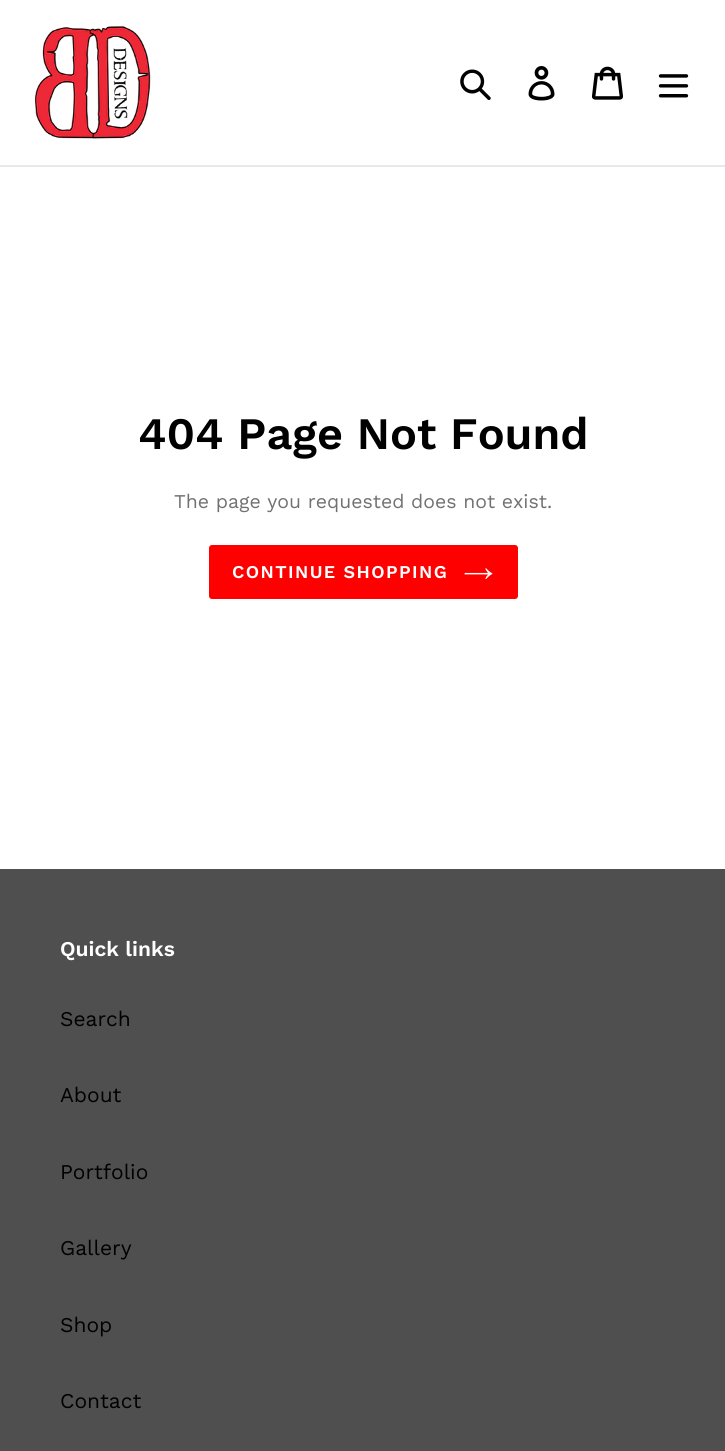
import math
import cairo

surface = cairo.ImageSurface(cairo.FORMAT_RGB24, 725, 1451)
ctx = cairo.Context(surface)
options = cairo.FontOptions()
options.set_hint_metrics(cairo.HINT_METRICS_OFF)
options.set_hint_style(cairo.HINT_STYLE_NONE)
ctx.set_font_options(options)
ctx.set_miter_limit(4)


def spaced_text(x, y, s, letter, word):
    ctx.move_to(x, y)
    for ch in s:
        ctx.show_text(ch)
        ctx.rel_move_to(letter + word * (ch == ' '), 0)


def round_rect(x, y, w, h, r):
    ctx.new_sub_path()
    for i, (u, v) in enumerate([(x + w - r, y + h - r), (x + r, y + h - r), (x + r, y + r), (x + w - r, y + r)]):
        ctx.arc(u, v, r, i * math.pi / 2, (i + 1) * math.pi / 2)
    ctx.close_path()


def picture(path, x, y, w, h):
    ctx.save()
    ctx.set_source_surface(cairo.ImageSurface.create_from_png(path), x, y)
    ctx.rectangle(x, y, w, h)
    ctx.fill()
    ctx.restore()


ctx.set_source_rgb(1, 1, 1)
ctx.paint()
ctx.set_source_rgb(0.91, 0.914, 0.922)
ctx.rectangle(0, 165, 725, 2)
ctx.fill()
picture("img1.png", 34, 26, 117, 113)
picture("img2.png", 460, 69, 31, 31)
picture("img3.png", 528, 66, 27, 35)
picture("img4.png", 591, 66, 32, 34)
picture("img5.png", 658, 74, 31, 24)
ctx.select_font_face("Work Sans SemiBold")
ctx.set_font_size(45)
ctx.set_source_rgb(0, 0, 0)
ctx.move_to(138, 449)
ctx.show_text("404 Page Not Found")
ctx.select_font_face("Work Sans")
ctx.set_font_size(19.5)
ctx.set_source_rgb(0.447, 0.439, 0.439)
ctx.move_to(174, 508)
ctx.show_text("The page you requested does not exist.")
ctx.set_source_rgb(1, 0, 0)
round_rect(209, 545, 309, 54, 3)
ctx.fill()
ctx.select_font_face("Work Sans SemiBold")
ctx.set_font_size(18)
ctx.set_source_rgb(1, 1, 1)
spaced_text(232, 578, "CONTINUE SHOPPING", 1.4, 0)
picture("img6.png", 464, 568, 29, 11)
ctx.set_source_rgb(0.31, 0.31, 0.31)
ctx.rectangle(0, 869, 725, 582)
ctx.fill()
ctx.set_font_size(21)
ctx.set_source_rgb(1, 1, 1)
ctx.move_to(60, 956)
ctx.show_text("Quick links")
ctx.select_font_face("Work Sans")
ctx.set_source_rgb(0, 0, 0)
ctx.move_to(60, 1026)
ctx.show_text("Search")
ctx.move_to(60, 1102)
ctx.show_text("About")
ctx.move_to(60, 1179)
ctx.show_text("Portfolio")
ctx.move_to(60, 1255)
ctx.show_text("Gallery")
ctx.move_to(60, 1332)
ctx.show_text("Shop")
ctx.move_to(60, 1408)
ctx.show_text("Contact")
surface.write_to_png("page.png")
